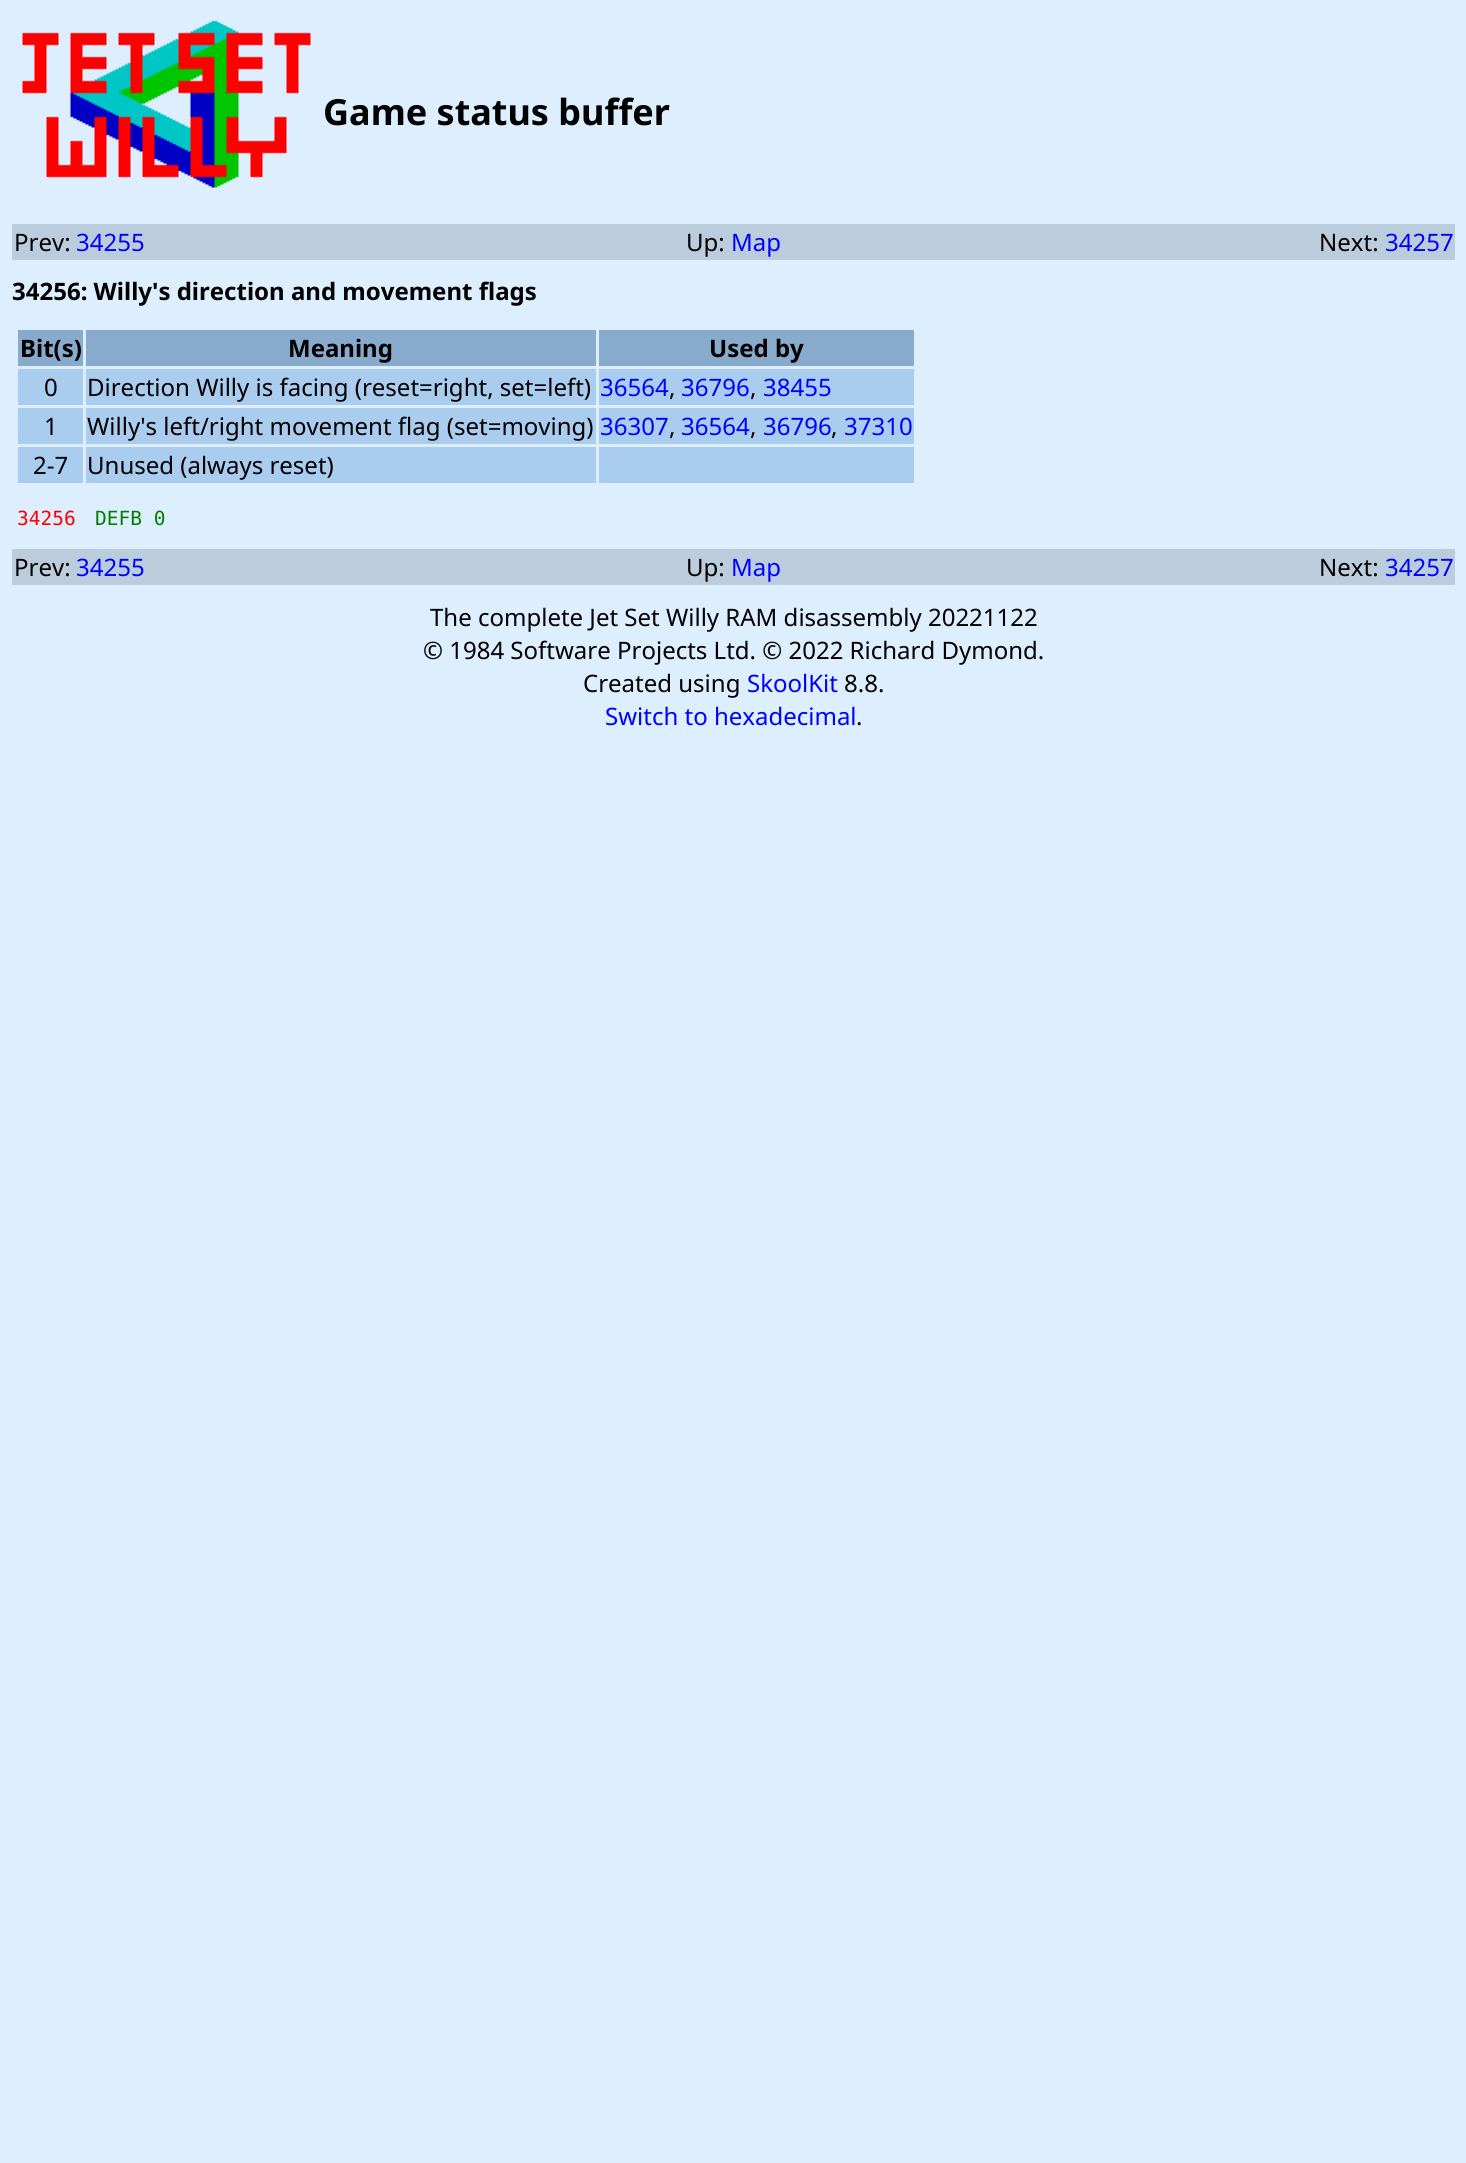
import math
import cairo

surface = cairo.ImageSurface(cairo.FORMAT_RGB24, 1466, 2163)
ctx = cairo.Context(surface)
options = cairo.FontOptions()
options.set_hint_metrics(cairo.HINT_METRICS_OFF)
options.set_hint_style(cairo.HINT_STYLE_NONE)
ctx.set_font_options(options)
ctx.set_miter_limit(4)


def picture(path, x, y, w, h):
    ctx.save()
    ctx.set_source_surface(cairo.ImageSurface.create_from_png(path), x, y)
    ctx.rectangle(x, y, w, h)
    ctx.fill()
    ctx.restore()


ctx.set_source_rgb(0.867, 0.933, 1)
ctx.paint()
picture("img1.png", 22, 20, 289, 168)
ctx.select_font_face("Noto Sans", cairo.FONT_SLANT_NORMAL, cairo.FONT_WEIGHT_BOLD)
ctx.set_font_size(36)
ctx.set_source_rgb(0, 0, 0)
ctx.move_to(323, 125)
ctx.show_text("Game status buffer")
ctx.set_source_rgb(0.733, 0.8, 0.867)
ctx.rectangle(12, 224, 1443, 36)
ctx.fill()
ctx.select_font_face("Noto Sans")
ctx.set_font_size(24)
ctx.set_source_rgb(0, 0, 0)
ctx.move_to(14, 251)
ctx.show_text("Prev:")
ctx.set_source_rgb(0, 0, 1)
ctx.move_to(76, 251)
ctx.show_text("34255")
ctx.set_source_rgb(0, 0, 0)
ctx.move_to(686, 251)
ctx.show_text("Up:")
ctx.set_source_rgb(0, 0, 1)
ctx.move_to(731, 251)
ctx.show_text("Map")
ctx.set_source_rgb(0, 0, 0)
ctx.move_to(1319, 251)
ctx.show_text("Next:")
ctx.set_source_rgb(0, 0, 1)
ctx.move_to(1385, 251)
ctx.show_text("34257")
ctx.select_font_face("Noto Sans", cairo.FONT_SLANT_NORMAL, cairo.FONT_WEIGHT_BOLD)
ctx.set_source_rgb(0, 0, 0)
ctx.move_to(12, 300)
ctx.show_text("34256: Willy's direction and movement flags")
ctx.set_source_rgb(0.533, 0.667, 0.8)
ctx.rectangle(18, 330, 65, 36)
ctx.fill()
ctx.set_source_rgb(0, 0, 0)
ctx.move_to(20, 357)
ctx.show_text("Bit(s)")
ctx.set_source_rgb(0.533, 0.667, 0.8)
ctx.rectangle(86, 330, 510, 36)
ctx.fill()
ctx.set_source_rgb(0, 0, 0)
ctx.move_to(288, 357)
ctx.show_text("Meaning")
ctx.set_source_rgb(0.533, 0.667, 0.8)
ctx.rectangle(599, 330, 315, 36)
ctx.fill()
ctx.set_source_rgb(0, 0, 0)
ctx.move_to(709, 357)
ctx.show_text("Used by")
ctx.set_source_rgb(0.667, 0.8, 0.933)
ctx.rectangle(18, 369, 65, 36)
ctx.fill()
ctx.select_font_face("Noto Sans")
ctx.set_source_rgb(0, 0, 0)
ctx.move_to(44, 396)
ctx.show_text("0")
ctx.set_source_rgb(0.667, 0.8, 0.933)
ctx.rectangle(86, 369, 510, 36)
ctx.fill()
ctx.set_source_rgb(0, 0, 0)
ctx.move_to(87, 396)
ctx.show_text("Direction Willy is facing (reset=right, set=left)")
ctx.set_source_rgb(0.667, 0.8, 0.933)
ctx.rectangle(599, 369, 315, 36)
ctx.fill()
ctx.set_source_rgb(0, 0, 1)
ctx.move_to(600, 396)
ctx.show_text("36564")
ctx.set_source_rgb(0, 0, 0)
ctx.move_to(669, 396)
ctx.show_text(",")
ctx.set_source_rgb(0, 0, 1)
ctx.move_to(681, 396)
ctx.show_text("36796")
ctx.set_source_rgb(0, 0, 0)
ctx.move_to(750, 396)
ctx.show_text(",")
ctx.set_source_rgb(0, 0, 1)
ctx.move_to(763, 396)
ctx.show_text("38455")
ctx.set_source_rgb(0.667, 0.8, 0.933)
ctx.rectangle(18, 408, 65, 36)
ctx.fill()
ctx.set_source_rgb(0, 0, 0)
ctx.move_to(44, 435)
ctx.show_text("1")
ctx.set_source_rgb(0.667, 0.8, 0.933)
ctx.rectangle(86, 408, 510, 36)
ctx.fill()
ctx.set_source_rgb(0, 0, 0)
ctx.move_to(87, 435)
ctx.show_text("Willy's left/right movement flag (set=moving)")
ctx.set_source_rgb(0.667, 0.8, 0.933)
ctx.rectangle(599, 408, 315, 36)
ctx.fill()
ctx.set_source_rgb(0, 0, 1)
ctx.move_to(600, 435)
ctx.show_text("36307")
ctx.set_source_rgb(0, 0, 0)
ctx.move_to(669, 435)
ctx.show_text(",")
ctx.set_source_rgb(0, 0, 1)
ctx.move_to(681, 435)
ctx.show_text("36564")
ctx.set_source_rgb(0, 0, 0)
ctx.move_to(750, 435)
ctx.show_text(",")
ctx.set_source_rgb(0, 0, 1)
ctx.move_to(763, 435)
ctx.show_text("36796")
ctx.set_source_rgb(0, 0, 0)
ctx.move_to(831, 435)
ctx.show_text(",")
ctx.set_source_rgb(0, 0, 1)
ctx.move_to(844, 435)
ctx.show_text("37310")
ctx.set_source_rgb(0.667, 0.8, 0.933)
ctx.rectangle(18, 447, 65, 36)
ctx.fill()
ctx.set_source_rgb(0, 0, 0)
ctx.move_to(33, 474)
ctx.show_text("2-7")
ctx.set_source_rgb(0.667, 0.8, 0.933)
ctx.rectangle(86, 447, 510, 36)
ctx.fill()
ctx.set_source_rgb(0, 0, 0)
ctx.move_to(87, 474)
ctx.show_text("Unused (always reset)")
ctx.set_source_rgb(0.667, 0.8, 0.933)
ctx.rectangle(599, 447, 315, 36)
ctx.fill()
ctx.select_font_face("DejaVu Sans Mono")
ctx.set_font_size(19.5)
ctx.set_source_rgb(1, 0, 0)
ctx.move_to(17, 525)
ctx.show_text("34256")
ctx.set_source_rgb(0, 0.502, 0)
ctx.move_to(95, 525)
ctx.show_text("DEFB 0")
ctx.set_source_rgb(0.733, 0.8, 0.867)
ctx.rectangle(12, 549, 1443, 36)
ctx.fill()
ctx.select_font_face("Noto Sans")
ctx.set_font_size(24)
ctx.set_source_rgb(0, 0, 0)
ctx.move_to(14, 576)
ctx.show_text("Prev:")
ctx.set_source_rgb(0, 0, 1)
ctx.move_to(76, 576)
ctx.show_text("34255")
ctx.set_source_rgb(0, 0, 0)
ctx.move_to(686, 576)
ctx.show_text("Up:")
ctx.set_source_rgb(0, 0, 1)
ctx.move_to(731, 576)
ctx.show_text("Map")
ctx.set_source_rgb(0, 0, 0)
ctx.move_to(1319, 576)
ctx.show_text("Next:")
ctx.set_source_rgb(0, 0, 1)
ctx.move_to(1385, 576)
ctx.show_text("34257")
ctx.set_source_rgb(0, 0, 0)
ctx.move_to(430, 626)
ctx.show_text("The complete Jet Set Willy RAM disassembly 20221122")
ctx.move_to(423, 659)
ctx.show_text("© 1984 Software Projects Ltd. © 2022 Richard Dymond.")
ctx.move_to(583, 692)
ctx.show_text("Created using")
ctx.set_source_rgb(0, 0, 1)
ctx.move_to(747, 692)
ctx.show_text("SkoolKit")
ctx.set_source_rgb(0, 0, 0)
ctx.move_to(844, 692)
ctx.show_text("8.8.")
ctx.set_source_rgb(0, 0, 1)
ctx.move_to(605, 725)
ctx.show_text("Switch to hexadecimal")
ctx.set_source_rgb(0, 0, 0)
ctx.move_to(856, 725)
ctx.show_text(".")
surface.write_to_png("page.png")
